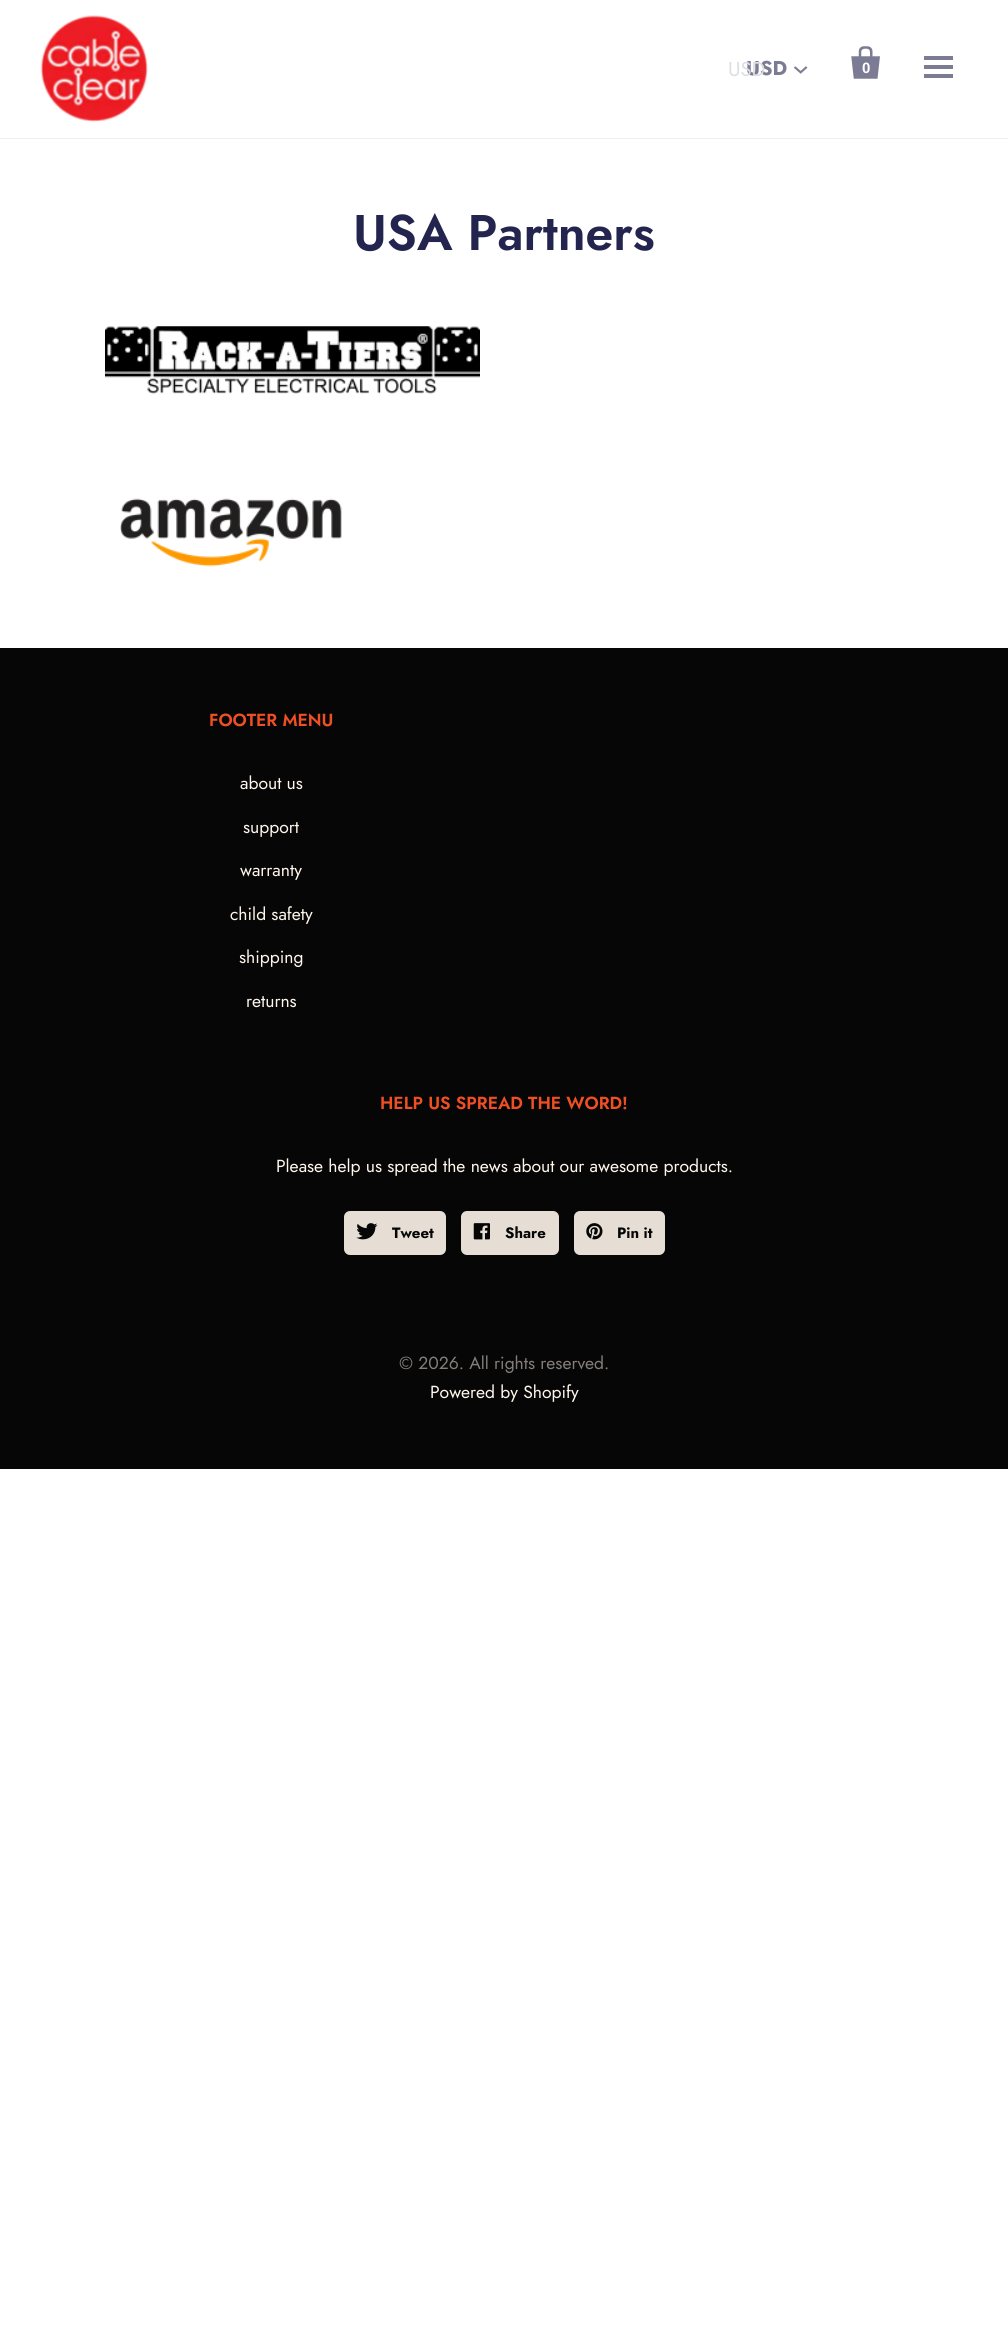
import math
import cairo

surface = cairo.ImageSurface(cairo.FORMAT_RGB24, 1008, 2345)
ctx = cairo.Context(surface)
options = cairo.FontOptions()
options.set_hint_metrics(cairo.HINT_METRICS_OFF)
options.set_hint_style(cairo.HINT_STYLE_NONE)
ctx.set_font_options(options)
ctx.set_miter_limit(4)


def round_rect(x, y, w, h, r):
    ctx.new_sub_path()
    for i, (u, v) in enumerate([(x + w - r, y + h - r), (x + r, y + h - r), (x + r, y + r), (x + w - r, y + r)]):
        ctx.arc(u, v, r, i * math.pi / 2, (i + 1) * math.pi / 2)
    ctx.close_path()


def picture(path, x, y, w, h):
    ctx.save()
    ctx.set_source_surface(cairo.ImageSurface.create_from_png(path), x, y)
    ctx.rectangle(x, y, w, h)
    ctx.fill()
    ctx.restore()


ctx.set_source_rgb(1, 1, 1)
ctx.paint()
ctx.set_source_rgb(0.941, 0.937, 0.949)
ctx.rectangle(0, 138, 1008, 1)
ctx.fill()
picture("img1.png", 40, 15, 108, 107)
ctx.select_font_face("Jost", cairo.FONT_SLANT_NORMAL, cairo.FONT_WEIGHT_BOLD)
ctx.set_font_size(20)
ctx.set_source_rgb(0.482, 0.486, 0.58)
ctx.move_to(746, 75)
ctx.show_text("USD")
ctx.select_font_face("Jost")
ctx.set_source_rgb(0.867, 0.867, 0.894)
ctx.move_to(728, 76)
ctx.show_text("USD")
picture("img2.png", 793, 66, 15, 8)
picture("img3.png", 851, 46, 29, 33)
ctx.select_font_face("Liberation Sans", cairo.FONT_SLANT_NORMAL, cairo.FONT_WEIGHT_BOLD)
ctx.set_font_size(15)
ctx.set_source_rgb(1, 1, 1)
ctx.move_to(862, 73)
ctx.show_text("0")
ctx.set_source_rgb(0.482, 0.486, 0.58)
ctx.rectangle(924, 65, 29, 4)
ctx.fill()
ctx.rectangle(924, 56, 29, 4)
ctx.fill()
ctx.rectangle(924, 74, 29, 4)
ctx.fill()
ctx.select_font_face("Jost SemiBold")
ctx.set_font_size(50)
ctx.set_source_rgb(0.141, 0.145, 0.306)
ctx.move_to(353, 250)
ctx.show_text("USA Partners")
picture("img4.png", 105, 326, 375, 68)
picture("img5.png", 120, 498, 222, 69)
ctx.set_source_rgb(0.024, 0.024, 0.027)
ctx.rectangle(0, 648, 1008, 821)
ctx.fill()
ctx.set_font_size(17.5)
ctx.set_source_rgb(0.941, 0.31, 0.141)
ctx.move_to(209, 726)
ctx.show_text("FOOTER MENU")
ctx.select_font_face("Jost")
ctx.set_source_rgb(1, 0.965, 0.922)
ctx.move_to(240, 789)
ctx.show_text("about us")
ctx.move_to(243, 833)
ctx.show_text("support")
ctx.move_to(240, 876)
ctx.show_text("warranty")
ctx.move_to(230, 920)
ctx.show_text("child safety")
ctx.move_to(239, 963)
ctx.show_text("shipping")
ctx.move_to(246, 1007)
ctx.show_text("returns")
ctx.select_font_face("Jost SemiBold")
ctx.set_source_rgb(0.941, 0.31, 0.141)
ctx.move_to(380, 1109)
ctx.show_text("HELP US SPREAD THE WORD!")
ctx.select_font_face("Jost")
ctx.set_source_rgb(1, 0.965, 0.922)
ctx.move_to(276, 1172)
ctx.show_text("Please help us spread the news about our awesome products.")
ctx.set_source_rgb(0.902, 0.871, 0.831)
round_rect(344, 1211, 102, 44, 6)
ctx.fill()
picture("img6.png", 356, 1223, 22, 17)
ctx.select_font_face("Jost", cairo.FONT_SLANT_NORMAL, cairo.FONT_WEIGHT_BOLD)
ctx.set_font_size(15)
ctx.set_source_rgb(0.024, 0.024, 0.027)
ctx.move_to(392, 1238)
ctx.show_text("Tweet")
ctx.set_source_rgb(0.902, 0.871, 0.831)
round_rect(461, 1211, 98, 44, 6)
ctx.fill()
picture("img7.png", 473, 1223, 17, 17)
ctx.set_source_rgb(0.024, 0.024, 0.027)
ctx.move_to(505, 1238)
ctx.show_text("Share")
ctx.set_source_rgb(0.902, 0.871, 0.831)
round_rect(574, 1211, 91, 44, 6)
ctx.fill()
picture("img8.png", 586, 1223, 17, 17)
ctx.set_source_rgb(0.024, 0.024, 0.027)
ctx.move_to(617, 1238)
ctx.show_text("Pin it")
ctx.select_font_face("Jost")
ctx.set_font_size(17.5)
ctx.set_source_rgb(0.514, 0.494, 0.475)
ctx.move_to(399, 1369)
ctx.show_text("© 2026. All rights reserved.")
ctx.set_source_rgb(1, 0.965, 0.922)
ctx.move_to(430, 1398)
ctx.show_text("Powered by Shopify")
surface.write_to_png("page.png")
